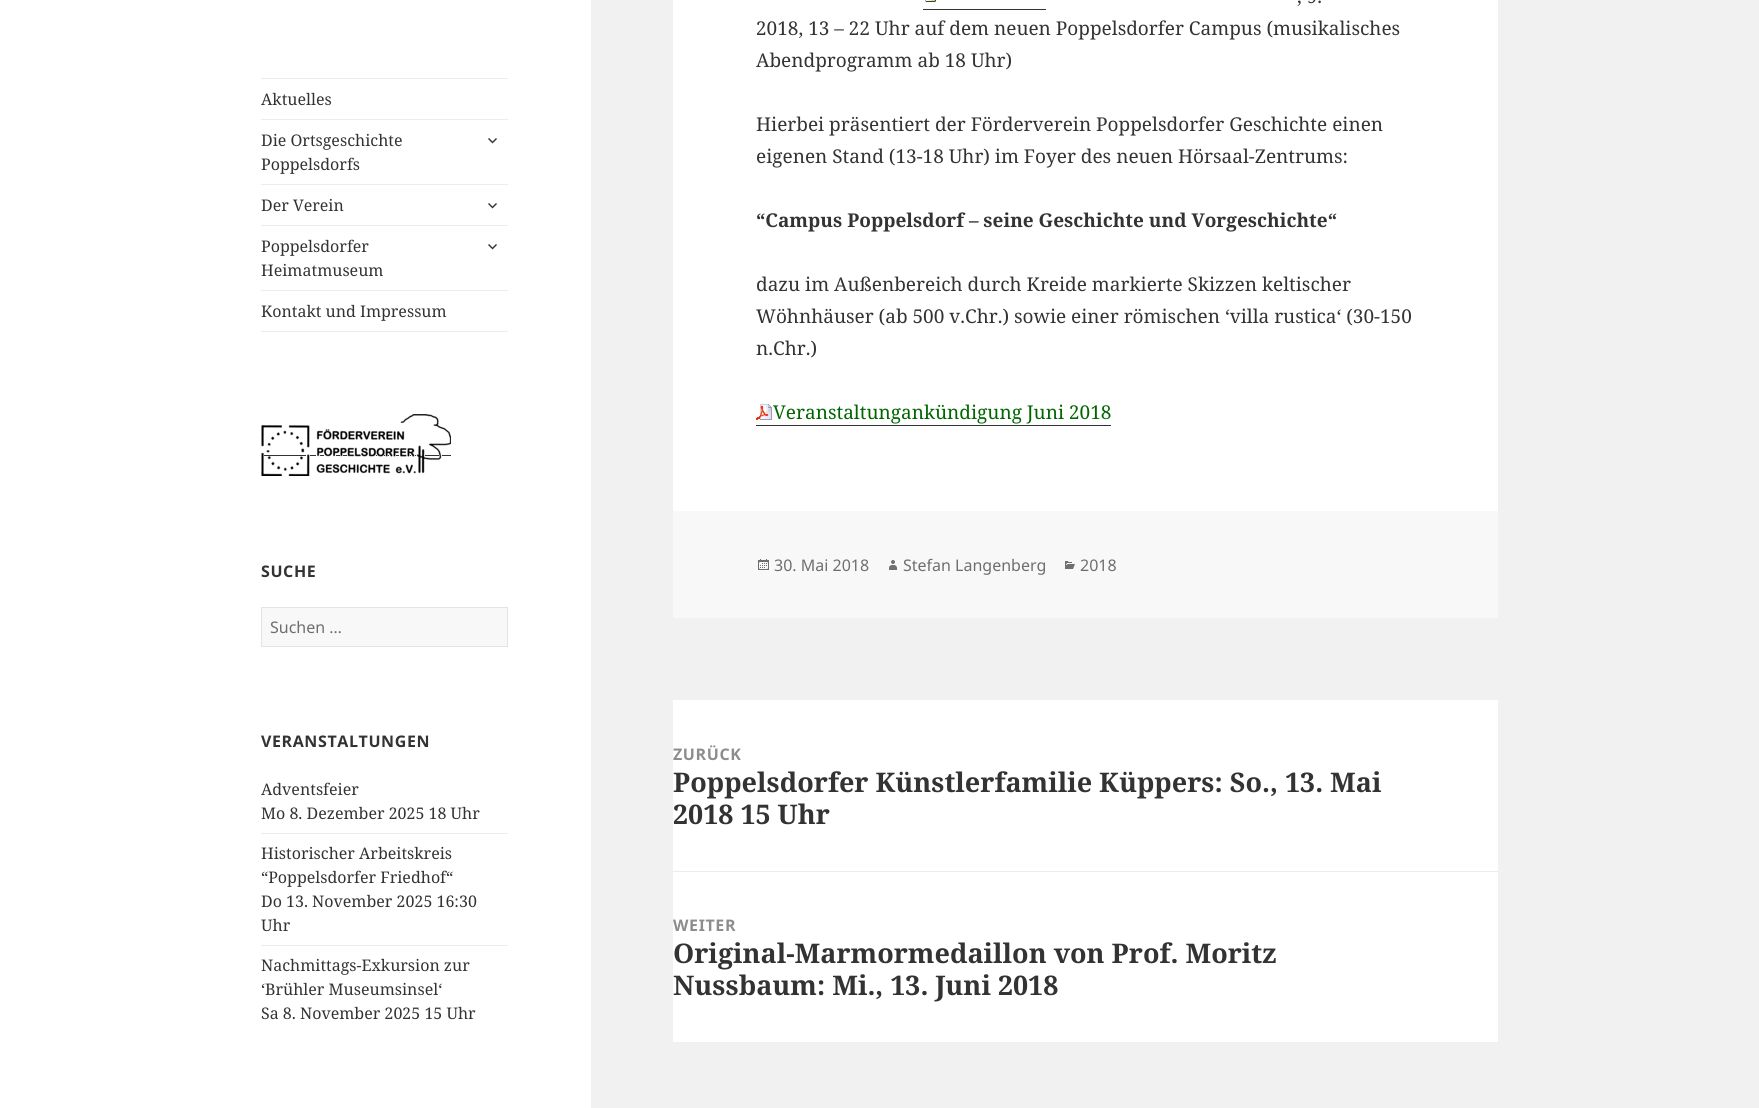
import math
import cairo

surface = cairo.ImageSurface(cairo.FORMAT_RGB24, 1759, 1108)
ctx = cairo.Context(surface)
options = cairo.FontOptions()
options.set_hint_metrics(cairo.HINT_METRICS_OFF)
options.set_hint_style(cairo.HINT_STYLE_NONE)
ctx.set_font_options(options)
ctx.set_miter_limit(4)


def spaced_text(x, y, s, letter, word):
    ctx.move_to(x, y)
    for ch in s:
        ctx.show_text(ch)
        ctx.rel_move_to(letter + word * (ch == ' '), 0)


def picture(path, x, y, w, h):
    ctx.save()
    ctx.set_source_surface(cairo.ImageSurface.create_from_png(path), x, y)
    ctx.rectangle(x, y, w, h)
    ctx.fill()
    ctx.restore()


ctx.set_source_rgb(0.945, 0.945, 0.945)
ctx.paint()
ctx.set_source_rgb(1, 1, 1)
ctx.rectangle(0, 0, 591, 1108)
ctx.fill()
ctx.set_source_rgb(0.922, 0.922, 0.922)
ctx.rectangle(261, 78, 247, 1)
ctx.fill()
ctx.rectangle(261, 331, 247, 1)
ctx.fill()
ctx.select_font_face("Noto Serif")
ctx.set_font_size(16)
ctx.set_source_rgb(0.2, 0.2, 0.2)
ctx.move_to(261, 105)
ctx.show_text("Aktuelles")
ctx.set_source_rgb(0.922, 0.922, 0.922)
ctx.rectangle(261, 119, 247, 1)
ctx.fill()
ctx.set_source_rgb(0.2, 0.2, 0.2)
ctx.move_to(261, 146)
ctx.show_text("Die Ortsgeschichte")
ctx.move_to(261, 170)
ctx.show_text("Poppelsdorfs")
picture("img1.png", 488, 138, 9, 6)
ctx.set_source_rgb(0.922, 0.922, 0.922)
ctx.rectangle(261, 184, 247, 1)
ctx.fill()
ctx.set_source_rgb(0.2, 0.2, 0.2)
ctx.move_to(261, 211)
ctx.show_text("Der Verein")
picture("img1.png", 488, 203, 9, 6)
ctx.set_source_rgb(0.922, 0.922, 0.922)
ctx.rectangle(261, 225, 247, 1)
ctx.fill()
ctx.set_source_rgb(0.2, 0.2, 0.2)
ctx.move_to(261, 252)
ctx.show_text("Poppelsdorfer")
ctx.move_to(261, 276)
ctx.show_text("Heimatmuseum")
picture("img1.png", 488, 244, 9, 6)
ctx.set_source_rgb(0.922, 0.922, 0.922)
ctx.rectangle(261, 290, 247, 1)
ctx.fill()
ctx.set_source_rgb(0.2, 0.2, 0.2)
ctx.move_to(261, 317)
ctx.show_text("Kontakt und Impressum")
ctx.rectangle(261, 455, 190, 1)
ctx.fill()
picture("img2.png", 261, 414, 190, 62)
ctx.select_font_face("Noto Sans", cairo.FONT_SLANT_NORMAL, cairo.FONT_WEIGHT_BOLD)
spaced_text(261, 577, "SUCHE", 0.6, 0)
ctx.set_source_rgb(0.969, 0.969, 0.969)
ctx.rectangle(261.5, 607.5, 246, 39)
ctx.fill_preserve()
ctx.set_source_rgb(0.89, 0.89, 0.89)
ctx.set_line_width(1)
ctx.stroke()
ctx.select_font_face("Noto Sans")
ctx.set_source_rgb(0.431, 0.431, 0.431)
ctx.move_to(270, 633)
ctx.show_text("Suchen …")
ctx.select_font_face("Noto Sans", cairo.FONT_SLANT_NORMAL, cairo.FONT_WEIGHT_BOLD)
ctx.set_source_rgb(0.2, 0.2, 0.2)
spaced_text(261, 747, "VERANSTALTUNGEN", 0.6, 0)
ctx.select_font_face("Noto Serif")
ctx.move_to(261, 795)
ctx.show_text("Adventsfeier")
ctx.move_to(261, 819)
ctx.show_text("Mo 8. Dezember 2025 18 Uhr")
ctx.set_source_rgb(0.922, 0.922, 0.922)
ctx.rectangle(261, 833, 247, 1)
ctx.fill()
ctx.set_source_rgb(0.2, 0.2, 0.2)
ctx.move_to(261, 859)
ctx.show_text("Historischer Arbeitskreis")
ctx.move_to(261, 883)
ctx.show_text("“Poppelsdorfer Friedhof“")
ctx.move_to(261, 907)
ctx.show_text("Do 13. November 2025 16:30")
ctx.move_to(261, 931)
ctx.show_text("Uhr")
ctx.set_source_rgb(0.922, 0.922, 0.922)
ctx.rectangle(261, 945, 247, 1)
ctx.fill()
ctx.set_source_rgb(0.2, 0.2, 0.2)
ctx.move_to(261, 971)
ctx.show_text("Nachmittags-Exkursion zur")
ctx.move_to(261, 995)
ctx.show_text("‘Brühler Museumsinsel‘")
ctx.move_to(261, 1019)
ctx.show_text("Sa 8. November 2025 15 Uhr")
ctx.set_source_rgb(1, 1, 1)
ctx.rectangle(673, 0, 825, 511)
ctx.fill()
picture("img3.png", 925, 0, 11, 2)
ctx.set_font_size(19)
ctx.set_source_rgb(0.2, 0.2, 0.2)
ctx.move_to(1297, 3)
ctx.show_text(", 9.")
ctx.rectangle(923, 9, 123, 1)
ctx.fill()
ctx.move_to(756, 35)
ctx.show_text("2018, 13 – 22 Uhr auf dem neuen Poppelsdorfer Campus (musikalisches")
ctx.move_to(756, 67)
ctx.show_text("Abendprogramm ab 18 Uhr)")
ctx.move_to(756, 131)
ctx.show_text("Hierbei präsentiert der Förderverein Poppelsdorfer Geschichte einen")
ctx.move_to(756, 163)
ctx.show_text("eigenen Stand (13-18 Uhr) im Foyer des neuen Hörsaal-Zentrums:")
ctx.select_font_face("Noto Serif", cairo.FONT_SLANT_NORMAL, cairo.FONT_WEIGHT_BOLD)
ctx.move_to(756, 227)
ctx.show_text("“Campus Poppelsdorf – seine Geschichte und Vorgeschichte“")
ctx.select_font_face("Noto Serif")
ctx.move_to(756, 291)
ctx.show_text("dazu im Außenbereich durch Kreide markierte Skizzen keltischer")
ctx.move_to(756, 323)
ctx.show_text("Wöhnhäuser (ab 500 v.Chr.) sowie einer römischen ‘villa rustica‘ (30-150")
ctx.move_to(756, 355)
ctx.show_text("n.Chr.)")
picture("img4.png", 756, 404, 16, 16)
ctx.set_source_rgb(0, 0.4, 0)
ctx.move_to(773, 419)
ctx.show_text("Veranstaltungankündigung Juni 2018")
ctx.set_source_rgb(0.2, 0.2, 0.2)
ctx.rectangle(756, 425, 355, 1)
ctx.fill()
ctx.set_source_rgb(0.969, 0.969, 0.969)
ctx.rectangle(673, 511, 825, 107)
ctx.fill()
picture("img5.png", 758, 559, 11, 11)
ctx.select_font_face("Noto Sans")
ctx.set_font_size(16)
ctx.set_source_rgb(0.431, 0.431, 0.431)
ctx.move_to(774, 571)
ctx.show_text("30. Mai 2018")
picture("img6.png", 889, 560, 8, 10)
ctx.move_to(903, 571)
ctx.show_text("Stefan Langenberg")
picture("img7.png", 1065, 561, 10, 8)
ctx.move_to(1080, 571)
ctx.show_text("2018")
ctx.set_source_rgb(1, 1, 1)
ctx.rectangle(673, 700, 825, 342)
ctx.fill()
ctx.select_font_face("Noto Sans", cairo.FONT_SLANT_NORMAL, cairo.FONT_WEIGHT_BOLD)
ctx.set_source_rgb(0.553, 0.553, 0.553)
spaced_text(673, 760, "ZURÜCK", 0.6, 0)
ctx.select_font_face("Noto Serif", cairo.FONT_SLANT_NORMAL, cairo.FONT_WEIGHT_BOLD)
ctx.set_font_size(27)
ctx.set_source_rgb(0.2, 0.2, 0.2)
ctx.move_to(673, 792)
ctx.show_text("Poppelsdorfer Künstlerfamilie Küppers: So., 13. Mai")
ctx.move_to(673, 824)
ctx.show_text("2018 15 Uhr")
ctx.set_source_rgb(0.922, 0.922, 0.922)
ctx.rectangle(673, 871, 825, 1)
ctx.fill()
ctx.select_font_face("Noto Sans", cairo.FONT_SLANT_NORMAL, cairo.FONT_WEIGHT_BOLD)
ctx.set_font_size(16)
ctx.set_source_rgb(0.553, 0.553, 0.553)
spaced_text(673, 931, "WEITER", 0.6, 0)
ctx.select_font_face("Noto Serif", cairo.FONT_SLANT_NORMAL, cairo.FONT_WEIGHT_BOLD)
ctx.set_font_size(27)
ctx.set_source_rgb(0.2, 0.2, 0.2)
ctx.move_to(673, 963)
ctx.show_text("Original-Marmormedaillon von Prof. Moritz")
ctx.move_to(673, 995)
ctx.show_text("Nussbaum: Mi., 13. Juni 2018")
surface.write_to_png("page.png")
